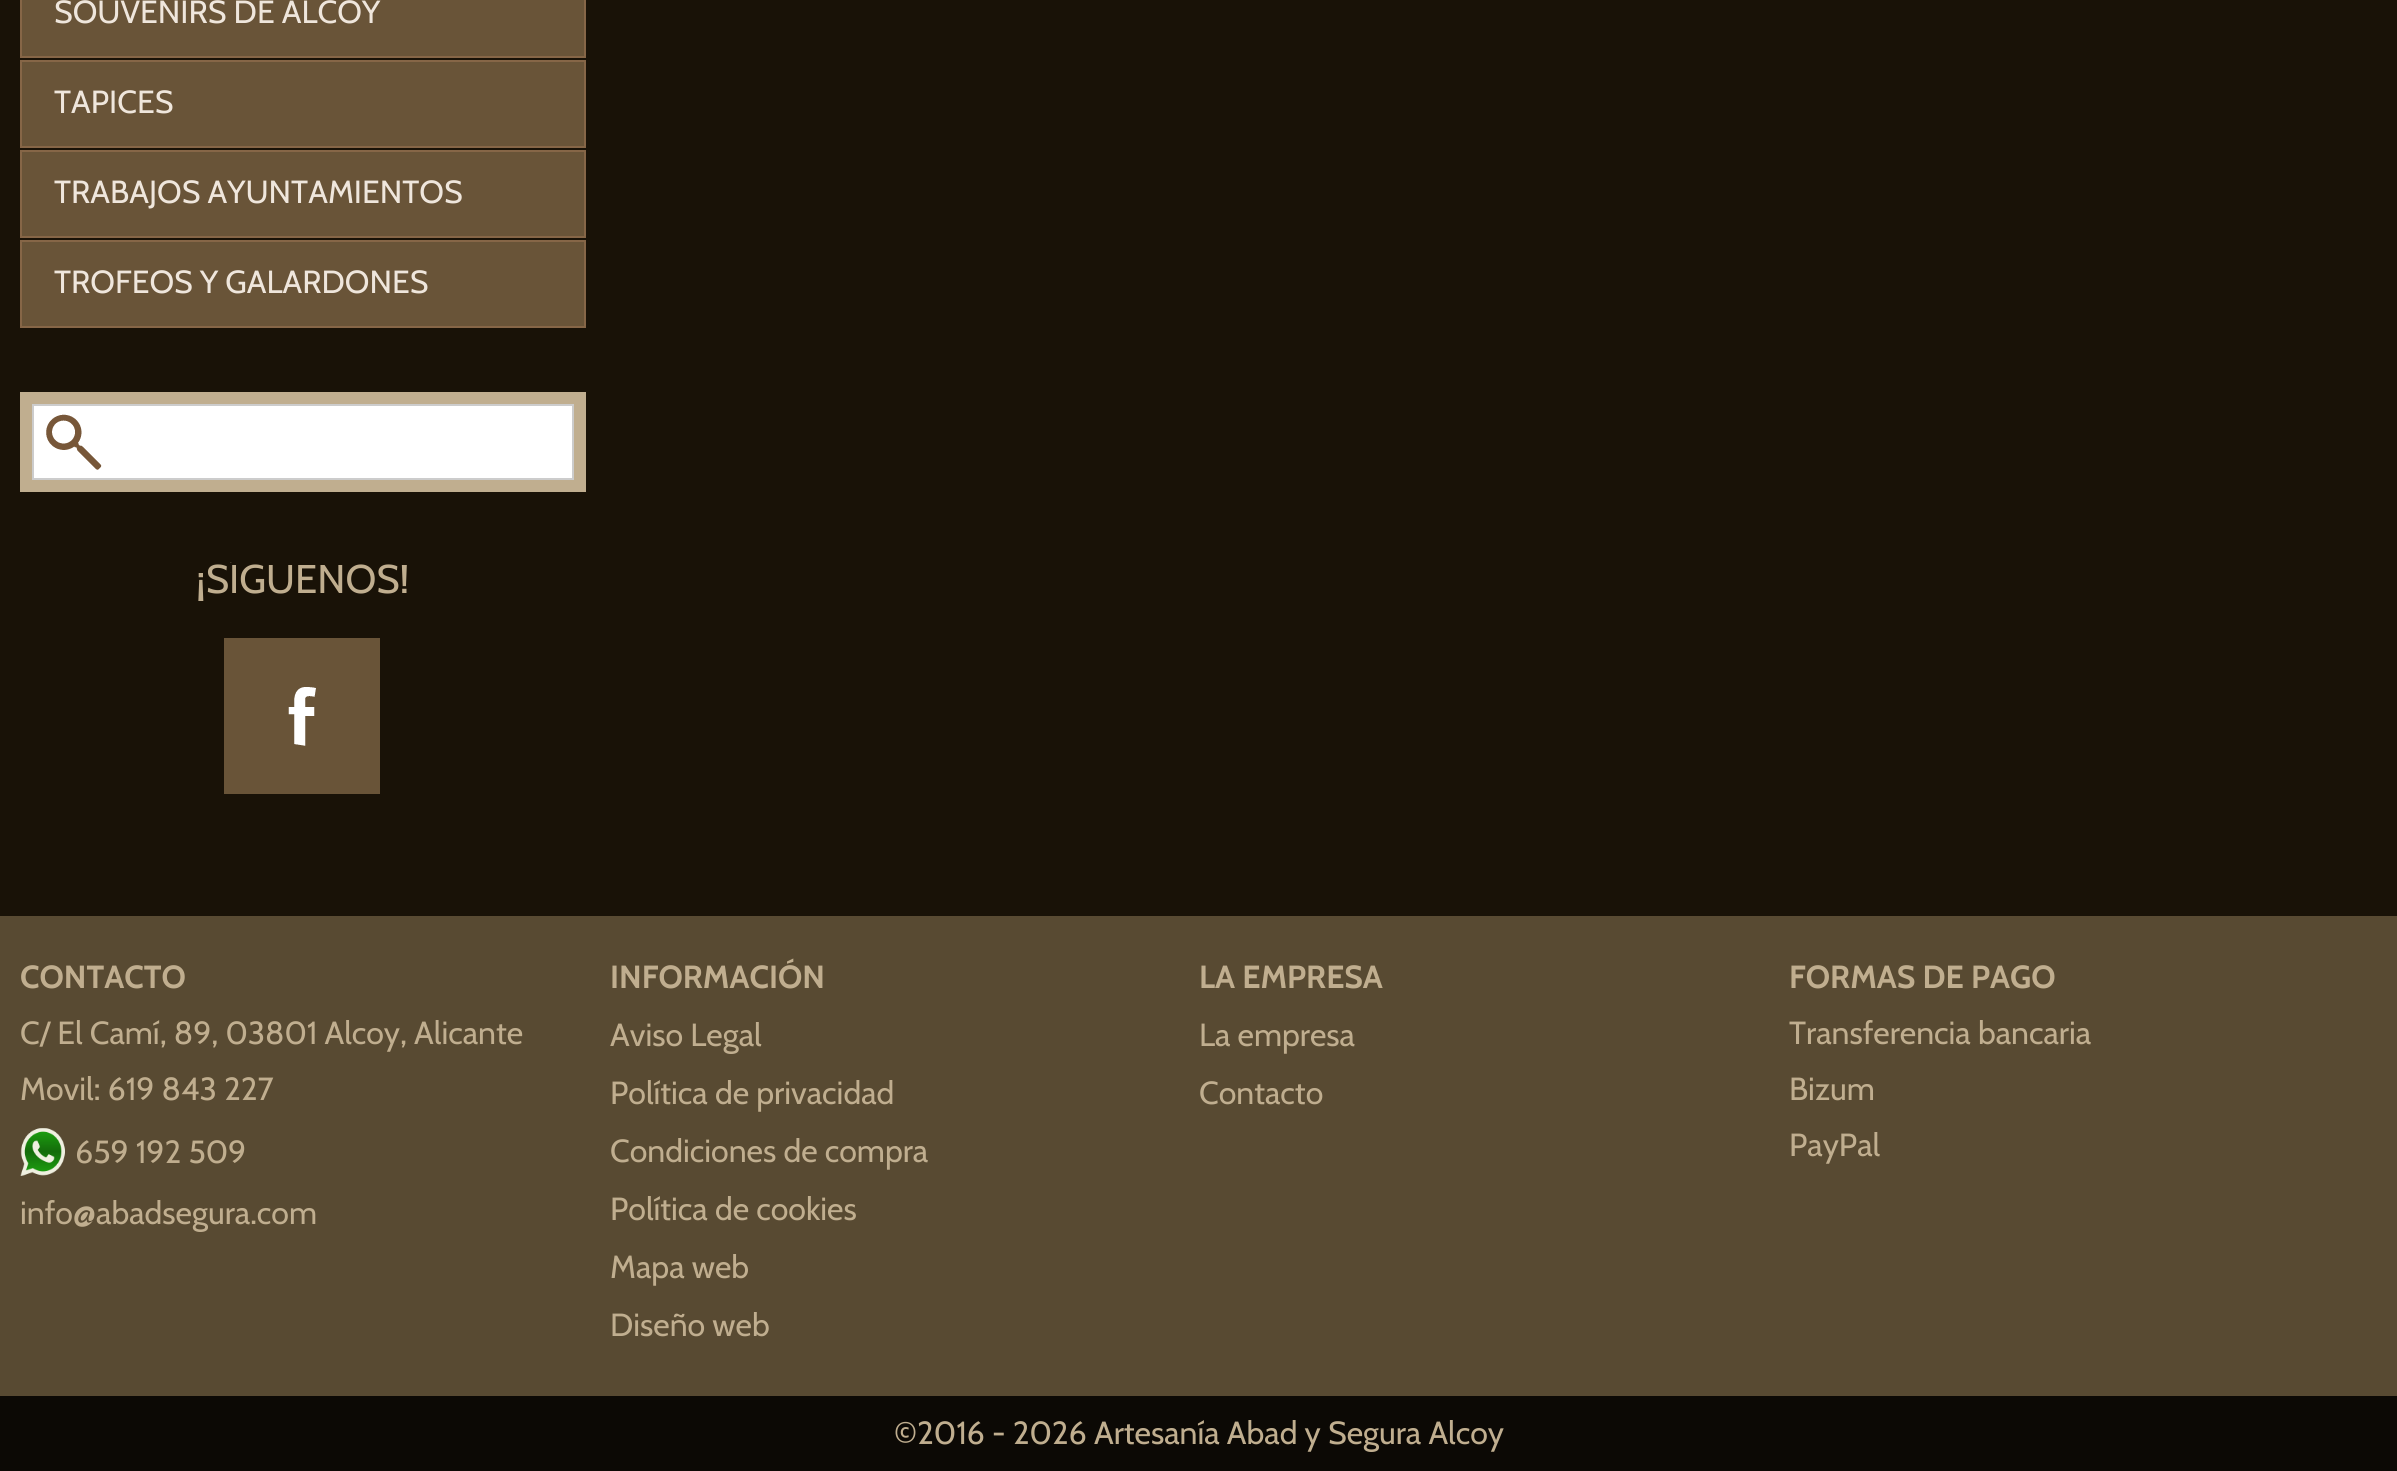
import math
import cairo

surface = cairo.ImageSurface(cairo.FORMAT_RGB24, 2397, 1471)
ctx = cairo.Context(surface)
options = cairo.FontOptions()
options.set_hint_metrics(cairo.HINT_METRICS_OFF)
options.set_hint_style(cairo.HINT_STYLE_NONE)
ctx.set_font_options(options)
ctx.set_miter_limit(4)


def picture(path, x, y, w, h):
    ctx.save()
    ctx.set_source_surface(cairo.ImageSurface.create_from_png(path), x, y)
    ctx.rectangle(x, y, w, h)
    ctx.fill()
    ctx.restore()


ctx.set_source_rgb(0.098, 0.071, 0.031)
ctx.paint()
ctx.set_source_rgb(0.412, 0.329, 0.22)
ctx.rectangle(21, -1, 564, 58)
ctx.fill_preserve()
ctx.set_source_rgb(0.525, 0.4, 0.278)
ctx.stroke()
ctx.select_font_face("Cabin")
ctx.set_font_size(32)
ctx.set_source_rgb(0.937, 0.902, 0.863)
ctx.move_to(54, 23)
ctx.show_text("SOUVENIRS DE ALCOY")
ctx.set_source_rgb(0.412, 0.329, 0.22)
ctx.rectangle(21, 61, 564, 86)
ctx.fill_preserve()
ctx.set_source_rgb(0.525, 0.4, 0.278)
ctx.stroke()
ctx.set_source_rgb(0.937, 0.902, 0.863)
ctx.move_to(54, 113)
ctx.show_text("TAPICES")
ctx.set_source_rgb(0.412, 0.329, 0.22)
ctx.rectangle(21, 151, 564, 86)
ctx.fill_preserve()
ctx.set_source_rgb(0.525, 0.4, 0.278)
ctx.stroke()
ctx.set_source_rgb(0.937, 0.902, 0.863)
ctx.move_to(54, 203)
ctx.show_text("TRABAJOS AYUNTAMIENTOS")
ctx.set_source_rgb(0.412, 0.329, 0.22)
ctx.rectangle(21, 241, 564, 86)
ctx.fill_preserve()
ctx.set_source_rgb(0.525, 0.4, 0.278)
ctx.stroke()
ctx.set_source_rgb(0.937, 0.902, 0.863)
ctx.move_to(54, 293)
ctx.show_text("TROFEOS Y GALARDONES")
ctx.set_source_rgb(0.753, 0.682, 0.561)
ctx.rectangle(20, 392, 566, 100)
ctx.fill()
ctx.set_source_rgb(1, 1, 1)
ctx.rectangle(34, 406, 538, 72)
ctx.fill()
picture("img1.png", 46, 414, 56, 56)
ctx.rectangle(33, 405, 540, 74)
ctx.set_source_rgb(0.8, 0.8, 0.8)
ctx.stroke()
ctx.save()
ctx.rectangle(20, 562, 566, 334)
ctx.clip()
ctx.set_font_size(40)
ctx.set_source_rgb(0.753, 0.682, 0.561)
ctx.move_to(196, 593)
ctx.show_text("¡SÍGUENOS!")
ctx.restore()
ctx.set_source_rgb(0.412, 0.329, 0.22)
ctx.rectangle(224, 638, 156, 156)
ctx.fill()
picture("img2.png", 288, 687, 28, 59)
ctx.set_source_rgb(0.345, 0.29, 0.196)
ctx.rectangle(0, 916, 2397, 480)
ctx.fill()
ctx.select_font_face("Cabin", cairo.FONT_SLANT_NORMAL, cairo.FONT_WEIGHT_BOLD)
ctx.set_source_rgb(0.753, 0.682, 0.561)
ctx.move_to(20, 988)
ctx.show_text("CONTACTO")
ctx.select_font_face("Cabin")
ctx.move_to(20, 1044)
ctx.show_text("C/ El Camí, 89, 03801 Alcoy, Alicante")
ctx.move_to(20, 1100)
ctx.show_text("Movil: 619 843 227")
picture("img3.png", 20, 1128, 45, 48)
ctx.move_to(75, 1163)
ctx.show_text("659 192 509")
ctx.move_to(20, 1224)
ctx.show_text("info@abadsegura.com")
ctx.select_font_face("Cabin", cairo.FONT_SLANT_NORMAL, cairo.FONT_WEIGHT_BOLD)
ctx.move_to(610, 988)
ctx.show_text("INFORMACIÓN")
ctx.select_font_face("Cabin")
ctx.move_to(610, 1046)
ctx.show_text("Aviso Legal")
ctx.move_to(610, 1104)
ctx.show_text("Política de privacidad")
ctx.move_to(610, 1162)
ctx.show_text("Condiciones de compra")
ctx.move_to(610, 1220)
ctx.show_text("Política de cookies")
ctx.move_to(610, 1278)
ctx.show_text("Mapa web")
ctx.move_to(610, 1336)
ctx.show_text("Diseño web")
ctx.select_font_face("Cabin", cairo.FONT_SLANT_NORMAL, cairo.FONT_WEIGHT_BOLD)
ctx.move_to(1199, 988)
ctx.show_text("LA EMPRESA")
ctx.select_font_face("Cabin")
ctx.move_to(1199, 1046)
ctx.show_text("La empresa")
ctx.move_to(1199, 1104)
ctx.show_text("Contacto")
ctx.select_font_face("Cabin", cairo.FONT_SLANT_NORMAL, cairo.FONT_WEIGHT_BOLD)
ctx.move_to(1789, 988)
ctx.show_text("FORMAS DE PAGO")
ctx.select_font_face("Cabin")
ctx.move_to(1789, 1044)
ctx.show_text("Transferencia bancaria")
ctx.move_to(1789, 1100)
ctx.show_text("Bizum")
ctx.move_to(1789, 1156)
ctx.show_text("PayPal")
ctx.set_source_rgb(0.047, 0.039, 0.02)
ctx.rectangle(0, 1396, 2397, 75)
ctx.fill()
ctx.set_source_rgb(0.753, 0.682, 0.561)
ctx.move_to(894, 1444)
ctx.show_text("©2016 - 2026 Artesanía Abad y Segura Alcoy")
surface.write_to_png("page.png")
